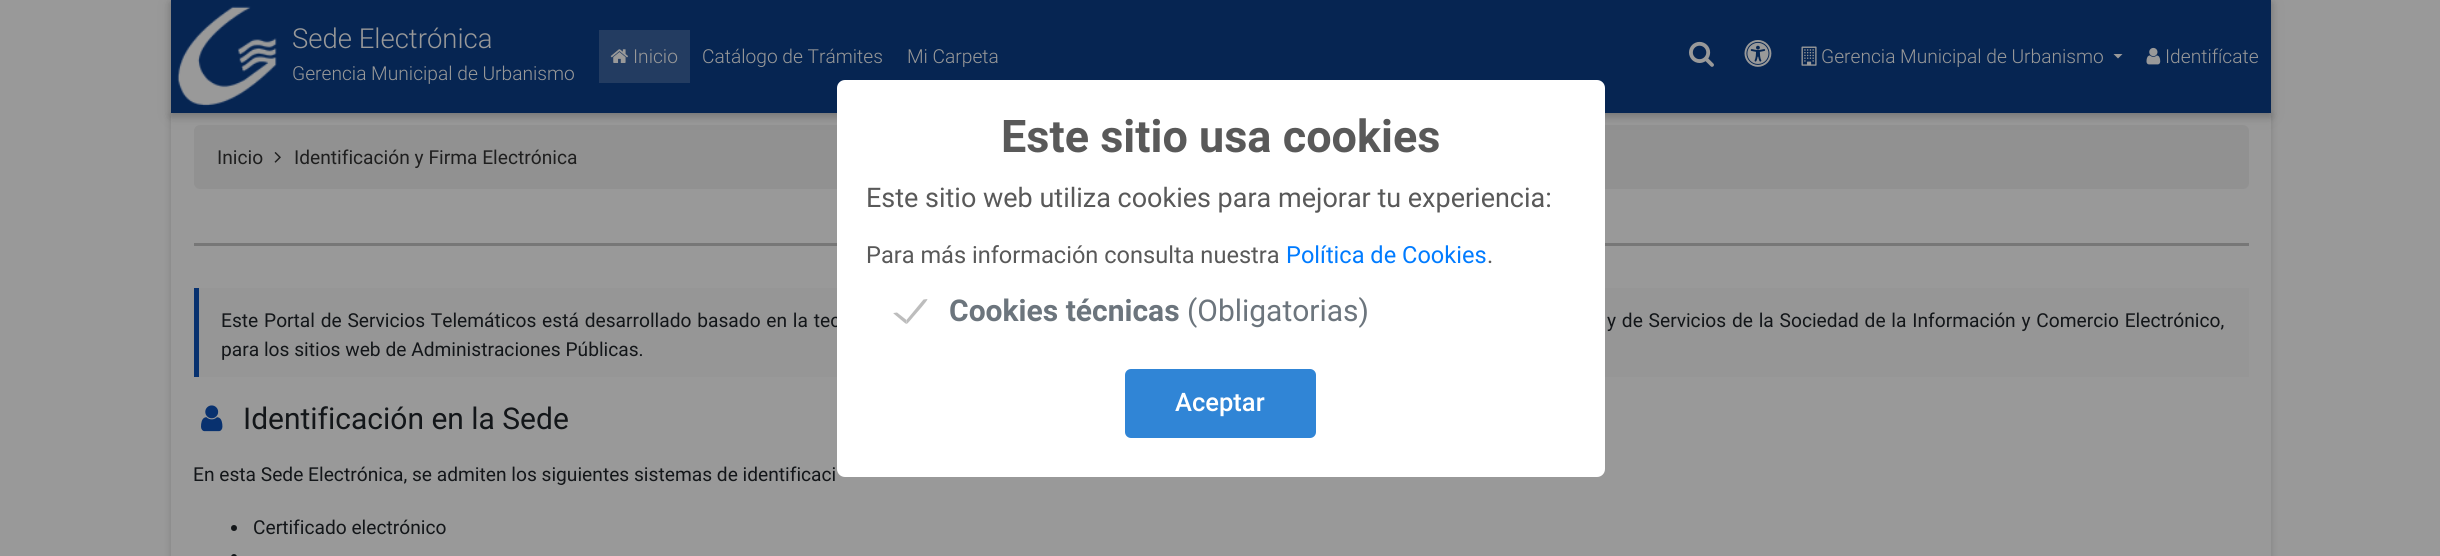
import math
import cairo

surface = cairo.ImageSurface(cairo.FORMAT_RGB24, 2440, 556)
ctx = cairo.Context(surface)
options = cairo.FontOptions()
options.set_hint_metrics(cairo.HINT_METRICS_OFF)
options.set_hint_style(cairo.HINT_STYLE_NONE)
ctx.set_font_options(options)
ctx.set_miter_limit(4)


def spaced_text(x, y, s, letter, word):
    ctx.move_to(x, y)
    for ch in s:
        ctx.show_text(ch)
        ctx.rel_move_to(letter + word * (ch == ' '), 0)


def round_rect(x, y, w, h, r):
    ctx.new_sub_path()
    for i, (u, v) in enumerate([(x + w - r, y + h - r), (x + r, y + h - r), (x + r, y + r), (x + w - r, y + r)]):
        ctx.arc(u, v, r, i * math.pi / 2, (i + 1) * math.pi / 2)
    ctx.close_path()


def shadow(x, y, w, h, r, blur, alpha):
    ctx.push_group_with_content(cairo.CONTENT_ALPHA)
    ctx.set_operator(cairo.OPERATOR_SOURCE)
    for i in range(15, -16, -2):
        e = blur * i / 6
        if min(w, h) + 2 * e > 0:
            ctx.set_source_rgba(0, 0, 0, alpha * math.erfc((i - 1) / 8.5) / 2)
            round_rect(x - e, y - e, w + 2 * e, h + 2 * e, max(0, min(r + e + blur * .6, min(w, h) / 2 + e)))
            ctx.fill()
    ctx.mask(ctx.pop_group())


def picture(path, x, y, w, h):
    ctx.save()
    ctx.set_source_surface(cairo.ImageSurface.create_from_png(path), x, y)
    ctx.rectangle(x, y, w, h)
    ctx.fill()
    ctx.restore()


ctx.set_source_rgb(0.6, 0.6, 0.6)
ctx.paint()
ctx.save()
ctx.set_fill_rule(cairo.FILL_RULE_EVEN_ODD)
ctx.new_path()
ctx.move_to(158, 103)
ctx.line_to(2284, 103)
ctx.line_to(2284, 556)
ctx.line_to(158, 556)
ctx.close_path()
ctx.move_to(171, 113)
ctx.line_to(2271, 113)
ctx.line_to(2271, 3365)
ctx.line_to(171, 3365)
ctx.close_path()
ctx.clip()
ctx.set_source_rgb(0, 0, 0)
shadow(171, 116, 2100, 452, 0, 4, 0.16)
ctx.restore()
ctx.set_source_rgb(0.569, 0.569, 0.569)
round_rect(194, 125, 2055, 64, 6)
ctx.fill()
ctx.set_source_rgb(0, 0, 0)
shadow(171, 3, 2100, 113, 0, 7.5, 0.12)
shadow(171, 3, 2100, 113, 0, 4, 0.16)
ctx.set_source_rgb(0.024, 0.145, 0.322)
ctx.rectangle(171, 0, 2100, 113)
ctx.fill()
picture("img1.png", 177, 6, 100, 101)
ctx.select_font_face("Roboto Light")
ctx.set_font_size(27.5)
ctx.set_source_rgb(0.6, 0.6, 0.6)
ctx.move_to(292, 48)
ctx.show_text("Sede Electrónica")
ctx.set_font_size(19.2)
ctx.move_to(292, 80)
ctx.show_text("Gerencia Municipal de Urbanismo")
ctx.set_source_rgb(0.137, 0.235, 0.38)
ctx.rectangle(599, 30, 91, 53)
ctx.fill()
picture("img2.png", 610, 49, 18, 14)
ctx.set_source_rgb(0.6, 0.6, 0.6)
ctx.move_to(633, 63)
ctx.show_text("Inicio")
ctx.move_to(702, 63)
ctx.show_text("Catálogo de Trámites")
ctx.move_to(907, 63)
ctx.show_text("Mi Carpeta")
picture("img3.png", 1689, 41, 25, 26)
picture("img4.png", 1744, 40, 28, 27)
picture("img5.png", 1801, 46, 16, 20)
ctx.move_to(1821, 63)
ctx.show_text("Gerencia Municipal de Urbanismo")
ctx.new_path()
ctx.move_to(2113.5, 54)
ctx.line_to(2122.5, 54)
ctx.line_to(2118, 58.5)
ctx.close_path()
ctx.fill()
picture("img6.png", 2146, 47, 15, 18)
ctx.move_to(2165, 63)
ctx.show_text("Identifícate")
ctx.set_source_rgb(0.588, 0.588, 0.588)
ctx.rectangle(199, 288, 2050, 89)
ctx.fill()
ctx.select_font_face("Roboto")
ctx.set_source_rgb(0.078, 0.086, 0.098)
spaced_text(221, 327, "Este Portal de Servicios Telemáticos está desarrollado basado en la tec", 0, 1)
ctx.set_source_rgb(1, 1, 1)
round_rect(837, 80, 768, 397, 8)
ctx.fill()
ctx.select_font_face("Roboto", cairo.FONT_SLANT_NORMAL, cairo.FONT_WEIGHT_BOLD)
ctx.set_font_size(45)
ctx.set_source_rgb(0.349, 0.349, 0.349)
ctx.move_to(1001, 152)
ctx.show_text("Este sitio usa cookies")
ctx.select_font_face("Roboto")
ctx.set_font_size(27)
ctx.move_to(866, 207)
ctx.show_text("Este sitio web utiliza cookies para mejorar tu experiencia:")
ctx.set_font_size(23.6)
ctx.move_to(866, 263)
ctx.show_text("Para más información consulta nuestra")
ctx.set_source_rgb(0, 0.482, 1)
ctx.move_to(1286, 263)
ctx.show_text("Política de Cookies")
ctx.set_source_rgb(0.349, 0.349, 0.349)
ctx.move_to(1487, 263)
ctx.show_text(".")
ctx.set_source_rgb(0.741, 0.741, 0.741)
ctx.new_path()
ctx.move_to(913.5, 316.5)
ctx.curve_to(912.5, 317.5, 908, 323.5, 906.5, 324)
ctx.line_to(906.5, 320)
ctx.line_to(923.5, 299.5)
ctx.line_to(927.5, 299)
ctx.curve_to(927.5, 301, 915.5, 314, 913.5, 316.5)
ctx.close_path()
ctx.fill()
ctx.new_path()
ctx.move_to(893.5, 313.5)
ctx.line_to(893.5, 313)
ctx.line_to(897, 312.5)
ctx.line_to(906.5, 320)
ctx.line_to(906.5, 324)
ctx.curve_to(905.5, 324, 895.5, 315, 893.5, 313.5)
ctx.close_path()
ctx.fill()
ctx.select_font_face("Roboto", cairo.FONT_SLANT_NORMAL, cairo.FONT_WEIGHT_BOLD)
ctx.set_font_size(30)
ctx.set_source_rgb(0.424, 0.459, 0.49)
ctx.move_to(949, 321)
ctx.show_text("Cookies técnicas")
ctx.select_font_face("Roboto")
ctx.move_to(1187, 321)
ctx.show_text("(Obligatorias)")
ctx.set_source_rgb(0.188, 0.522, 0.839)
round_rect(1125, 369, 191, 69, 6)
ctx.fill()
ctx.select_font_face("Roboto Medium")
ctx.set_font_size(25.5)
ctx.set_source_rgb(1, 1, 1)
ctx.move_to(1175, 411)
ctx.show_text("Aceptar")
ctx.select_font_face("Roboto")
ctx.set_font_size(19.2)
ctx.set_source_rgb(0.122, 0.122, 0.122)
ctx.move_to(217, 164)
ctx.show_text("Inicio")
picture("img7.png", 274, 152, 7, 11)
ctx.move_to(294, 164)
ctx.show_text("Identificación y Firma Electrónica")
ctx.set_source_rgb(0.467, 0.467, 0.467)
ctx.rectangle(194, 243, 643, 3)
ctx.fill()
ctx.rectangle(1605, 243, 644, 3)
ctx.fill()
ctx.set_source_rgb(0.031, 0.192, 0.435)
ctx.rectangle(194, 288, 5, 89)
ctx.fill()
ctx.set_source_rgb(0.078, 0.086, 0.098)
spaced_text(1607, 327, "y de Servicios de la Sociedad de la Información y Comercio Electrónico,", 0, 1)
ctx.move_to(221, 356)
ctx.show_text("para los sitios web de Administraciones Públicas.")
picture("img8.png", 201, 405, 22, 27)
ctx.set_font_size(30)
ctx.move_to(243, 429)
ctx.show_text("Identificación en la Sede")
ctx.set_font_size(19.2)
ctx.move_to(193, 481)
ctx.show_text("En esta Sede Electrónica, se admiten los siguientes sistemas de identificaci")
ctx.new_path()
ctx.arc(234, 528, 3, 0, 2 * math.pi)
ctx.fill()
ctx.move_to(253, 534)
ctx.show_text("Certificado electrónico")
round_rect(231, 554, 6, 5, 3)
ctx.fill()
surface.write_to_png("page.png")
